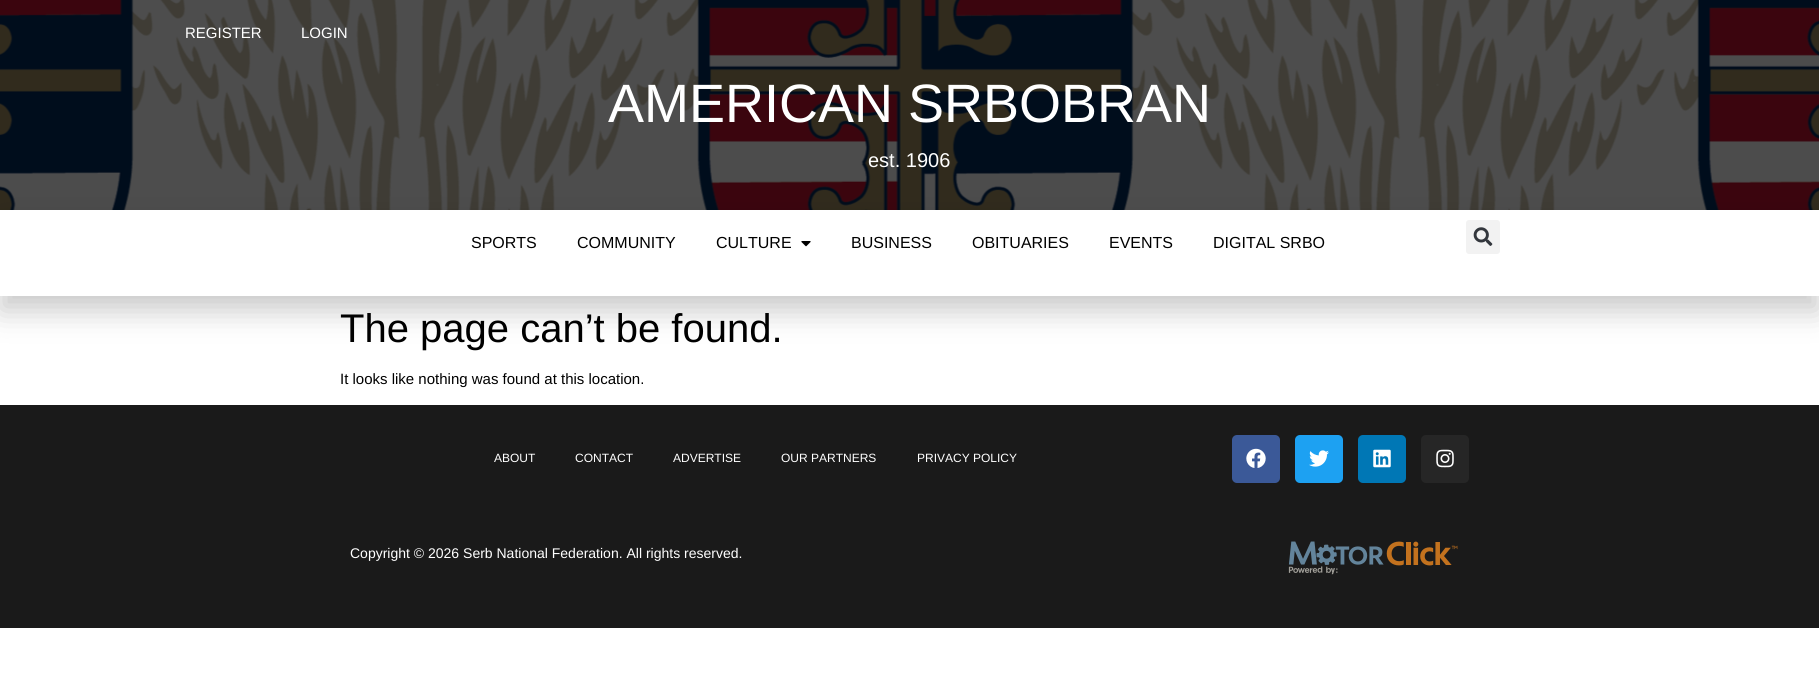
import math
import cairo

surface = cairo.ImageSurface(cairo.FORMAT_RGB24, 1819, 693)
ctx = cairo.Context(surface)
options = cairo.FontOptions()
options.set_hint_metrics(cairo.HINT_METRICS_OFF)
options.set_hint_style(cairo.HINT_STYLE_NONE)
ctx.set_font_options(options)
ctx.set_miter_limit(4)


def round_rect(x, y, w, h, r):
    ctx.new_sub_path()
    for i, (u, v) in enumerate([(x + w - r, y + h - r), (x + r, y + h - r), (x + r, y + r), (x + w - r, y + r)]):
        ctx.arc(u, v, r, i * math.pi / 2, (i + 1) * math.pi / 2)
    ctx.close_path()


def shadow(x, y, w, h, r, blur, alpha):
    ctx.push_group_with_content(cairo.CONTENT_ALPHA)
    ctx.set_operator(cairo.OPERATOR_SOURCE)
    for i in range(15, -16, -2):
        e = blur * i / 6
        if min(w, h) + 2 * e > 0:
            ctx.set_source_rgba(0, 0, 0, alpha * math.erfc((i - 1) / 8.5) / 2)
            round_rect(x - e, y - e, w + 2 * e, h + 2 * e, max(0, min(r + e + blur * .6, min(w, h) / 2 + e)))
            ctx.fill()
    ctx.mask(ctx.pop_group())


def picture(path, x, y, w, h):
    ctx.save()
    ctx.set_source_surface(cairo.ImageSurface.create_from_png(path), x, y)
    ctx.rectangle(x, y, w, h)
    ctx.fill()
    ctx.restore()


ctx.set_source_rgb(1, 1, 1)
ctx.paint()
ctx.set_source_rgb(0.302, 0.302, 0.302)
ctx.rectangle(32, 0, 1676, 210)
ctx.fill()
picture("img1.png", 0, 0, 1819, 210)
ctx.select_font_face("Liberation Sans")
ctx.set_font_size(15)
ctx.set_source_rgb(1, 1, 1)
ctx.move_to(185, 38)
ctx.show_text("REGISTER")
ctx.move_to(301, 38)
ctx.show_text("LOGIN")
ctx.set_font_size(54)
ctx.move_to(608, 122)
ctx.show_text("AMERICAN SRBOBRAN")
ctx.set_font_size(20)
ctx.move_to(868, 167)
ctx.show_text("est. 1906")
ctx.save()
ctx.set_fill_rule(cairo.FILL_RULE_EVEN_ODD)
ctx.new_path()
ctx.move_to(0, 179)
ctx.line_to(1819, 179)
ctx.line_to(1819, 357)
ctx.line_to(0, 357)
ctx.close_path()
ctx.move_to(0, 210)
ctx.line_to(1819, 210)
ctx.line_to(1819, 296)
ctx.line_to(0, 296)
ctx.close_path()
ctx.clip()
ctx.set_source_rgb(0, 0, 0)
shadow(0, 225, 1819, 86, 0, 15, 0.21)
ctx.restore()
ctx.set_font_size(16)
ctx.set_source_rgb(0, 0, 0)
ctx.move_to(471, 248)
ctx.show_text("SPORTS")
ctx.move_to(577, 248)
ctx.show_text("COMMUNITY")
ctx.move_to(716, 248)
ctx.show_text("CULTURE")
picture("img2.png", 801, 241, 10, 6)
ctx.move_to(851, 248)
ctx.show_text("BUSINESS")
ctx.move_to(972, 248)
ctx.show_text("OBITUARIES")
ctx.move_to(1109, 248)
ctx.show_text("EVENTS")
ctx.move_to(1213, 248)
ctx.show_text("DIGITAL SRBO")
ctx.set_source_rgb(0.949, 0.949, 0.949)
round_rect(1466, 220, 34, 34, 3)
ctx.fill()
picture("img3.png", 1473, 227, 20, 19)
ctx.set_font_size(40)
ctx.set_source_rgb(0, 0, 0)
ctx.move_to(340, 342)
ctx.show_text("The page can’t be found.")
ctx.set_font_size(15)
ctx.move_to(340, 384)
ctx.show_text("It looks like nothing was found at this location.")
ctx.set_source_rgb(0.102, 0.102, 0.102)
ctx.rectangle(0, 405, 1819, 223)
ctx.fill()
ctx.set_font_size(12)
ctx.set_source_rgb(1, 1, 1)
ctx.move_to(494, 462)
ctx.show_text("ABOUT")
ctx.move_to(575, 462)
ctx.show_text("CONTACT")
ctx.move_to(673, 462)
ctx.show_text("ADVERTISE")
ctx.move_to(781, 462)
ctx.show_text("OUR PARTNERS")
ctx.move_to(917, 462)
ctx.show_text("PRIVACY POLICY")
ctx.set_source_rgb(0.231, 0.349, 0.596)
round_rect(1232, 435, 48, 48, 5)
ctx.fill()
picture("img4.png", 1246, 448, 20, 20)
ctx.set_source_rgb(0.114, 0.631, 0.949)
round_rect(1295, 435, 48, 48, 5)
ctx.fill()
picture("img5.png", 1309, 450, 20, 17)
ctx.set_source_rgb(0, 0.467, 0.71)
round_rect(1358, 435, 48, 48, 5)
ctx.fill()
picture("img6.png", 1373, 449, 18, 19)
ctx.set_source_rgb(0.149, 0.149, 0.149)
round_rect(1421, 435, 48, 48, 5)
ctx.fill()
picture("img7.png", 1436, 449, 18, 19)
ctx.set_font_size(14)
ctx.set_source_rgb(1, 1, 1)
ctx.move_to(350, 558)
ctx.show_text("Copyright © 2026 Serb National Federation. All rights reserved.")
picture("img8.png", 1288, 541, 170, 34)
surface.write_to_png("page.png")
